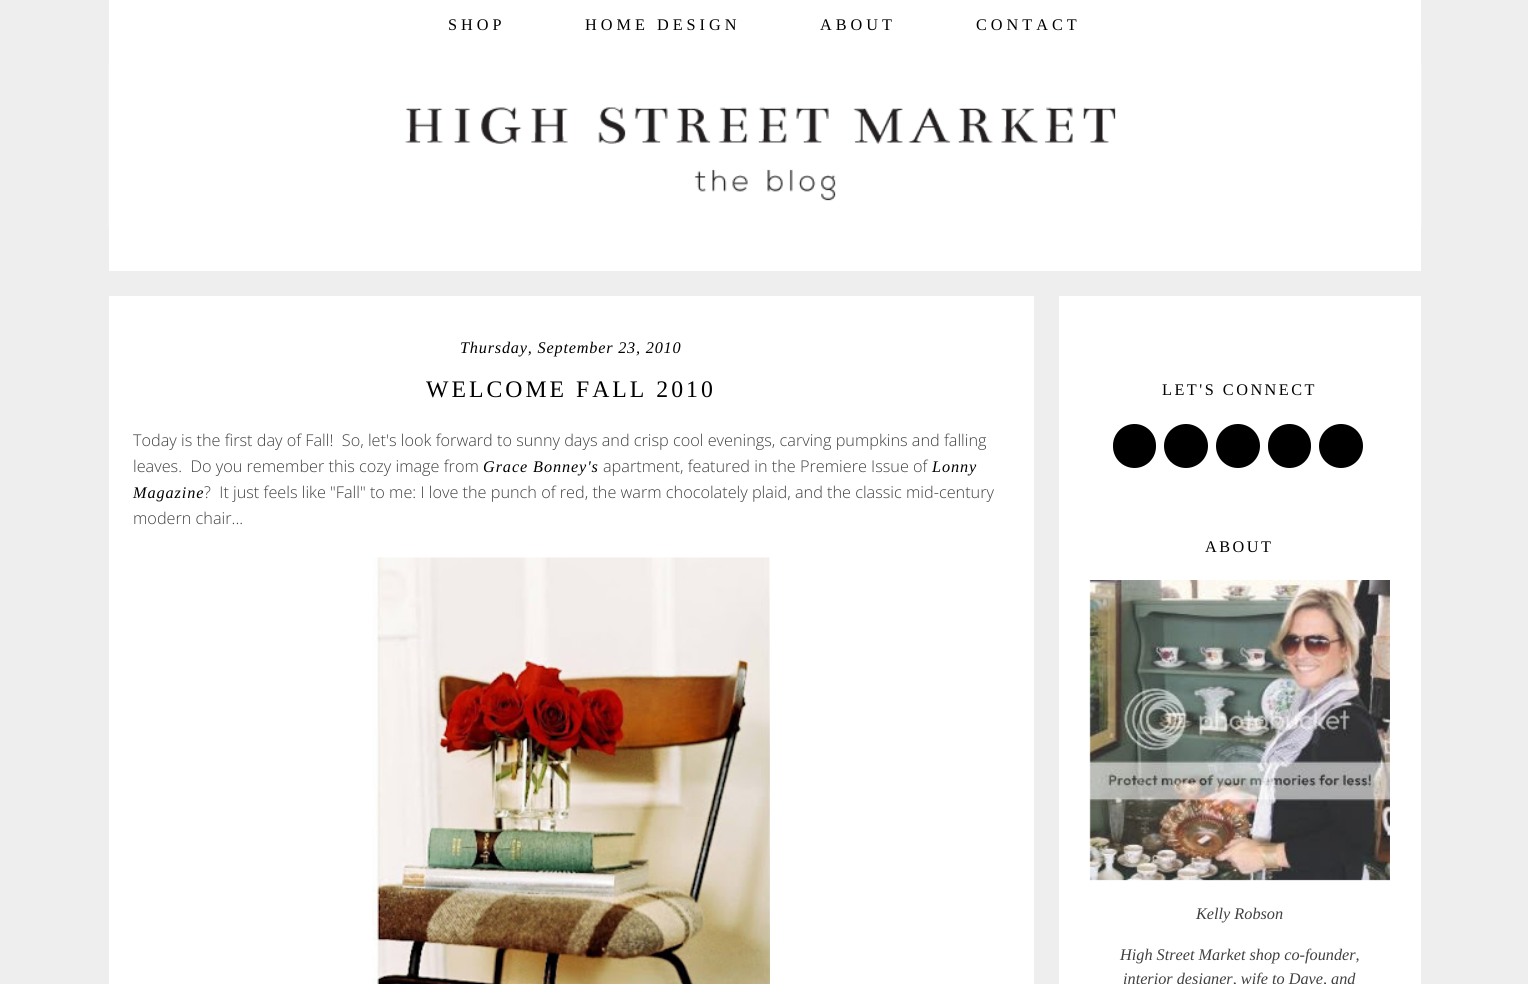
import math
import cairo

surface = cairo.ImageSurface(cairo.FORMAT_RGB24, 1528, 984)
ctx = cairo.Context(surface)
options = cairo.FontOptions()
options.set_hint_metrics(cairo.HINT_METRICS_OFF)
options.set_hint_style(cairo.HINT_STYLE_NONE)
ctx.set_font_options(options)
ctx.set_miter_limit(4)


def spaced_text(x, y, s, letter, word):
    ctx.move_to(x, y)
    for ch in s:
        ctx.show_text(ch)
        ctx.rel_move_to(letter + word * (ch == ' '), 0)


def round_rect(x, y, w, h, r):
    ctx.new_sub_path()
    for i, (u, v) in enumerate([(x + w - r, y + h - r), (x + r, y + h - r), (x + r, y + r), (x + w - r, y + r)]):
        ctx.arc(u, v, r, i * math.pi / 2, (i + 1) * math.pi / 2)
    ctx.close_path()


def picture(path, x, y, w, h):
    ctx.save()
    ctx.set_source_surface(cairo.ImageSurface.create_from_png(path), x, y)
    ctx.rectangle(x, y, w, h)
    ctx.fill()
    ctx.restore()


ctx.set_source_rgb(0.933, 0.933, 0.933)
ctx.paint()
ctx.set_source_rgb(1, 1, 1)
ctx.rectangle(109, 0, 1312, 271)
ctx.fill()
picture("img1.png", 108, 63, 1314, 164)
ctx.select_font_face("Liberation Serif")
ctx.set_font_size(16.25)
ctx.set_source_rgb(0, 0, 0)
spaced_text(448, 30, "SHOP", 4, 0)
spaced_text(585, 30, "HOME DESIGN", 4, 0)
spaced_text(820, 30, "ABOUT", 4, 0)
spaced_text(976, 30, "CONTACT", 4, 0)
ctx.set_source_rgb(1, 1, 1)
ctx.rectangle(109, 296, 925, 688)
ctx.fill()
ctx.select_font_face("Liberation Serif", cairo.FONT_SLANT_ITALIC)
ctx.set_source_rgb(0, 0, 0)
spaced_text(460, 353, "Thursday, September 23, 2010", 0.8, 0)
ctx.select_font_face("Liberation Serif")
ctx.set_font_size(23.75)
spaced_text(426, 397, "WELCOME FALL 2010", 3, 0)
ctx.select_font_face("Open Sans Light")
ctx.set_font_size(16.25)
ctx.set_source_rgb(0.251, 0.251, 0.251)
ctx.move_to(133, 446)
ctx.show_text("Today is the first day of Fall!  So, let's look forward to sunny days and crisp cool evenings, carving pumpkins and falling")
ctx.move_to(133, 472)
ctx.show_text("leaves.  Do you remember this cozy image from")
ctx.select_font_face("Liberation Serif", cairo.FONT_SLANT_ITALIC)
ctx.set_source_rgb(0, 0, 0)
spaced_text(483, 472, "Grace Bonney's", 0.9, 0)
ctx.select_font_face("Open Sans Light")
ctx.set_source_rgb(0.251, 0.251, 0.251)
ctx.move_to(603, 472)
ctx.show_text("apartment, featured in the Premiere Issue of")
ctx.select_font_face("Liberation Serif", cairo.FONT_SLANT_ITALIC)
ctx.set_source_rgb(0, 0, 0)
spaced_text(932, 472, "Lonny", 0.9, 0)
spaced_text(133, 498, "Magazine", 0.9, 0)
ctx.select_font_face("Open Sans Light")
ctx.set_source_rgb(0.251, 0.251, 0.251)
ctx.move_to(204, 498)
ctx.show_text("?  It just feels like \"Fall\" to me: I love the punch of red, the warm chocolately plaid, and the classic mid-century")
ctx.move_to(133, 524)
ctx.show_text("modern chair...")
picture("img2.png", 372, 557, 398, 427)
ctx.set_source_rgb(1, 1, 1)
ctx.rectangle(1059, 296, 362, 688)
ctx.fill()
ctx.select_font_face("Liberation Serif")
ctx.set_source_rgb(0, 0, 0)
spaced_text(1162, 395, "LET'S CONNECT", 2.5, 0)
round_rect(1113, 424, 43, 44, 21.5)
ctx.fill()
ctx.arc(1186, 446, 22, 0, 2 * math.pi)
ctx.fill()
ctx.arc(1238, 446, 22, 0, 2 * math.pi)
ctx.fill()
round_rect(1268, 424, 43, 44, 21.5)
ctx.fill()
ctx.arc(1341, 446, 22, 0, 2 * math.pi)
ctx.fill()
spaced_text(1205, 552, "ABOUT", 2.5, 0)
picture("img3.png", 1089, 580, 301, 301)
ctx.select_font_face("Liberation Serif", cairo.FONT_SLANT_ITALIC)
ctx.set_source_rgb(0.251, 0.251, 0.251)
ctx.move_to(1196, 919)
ctx.show_text("Kelly Robson")
ctx.move_to(1120, 960)
ctx.show_text("High Street Market shop co-founder,")
ctx.move_to(1123, 984)
ctx.show_text("interior designer, wife to Dave, and")
surface.write_to_png("page.png")
